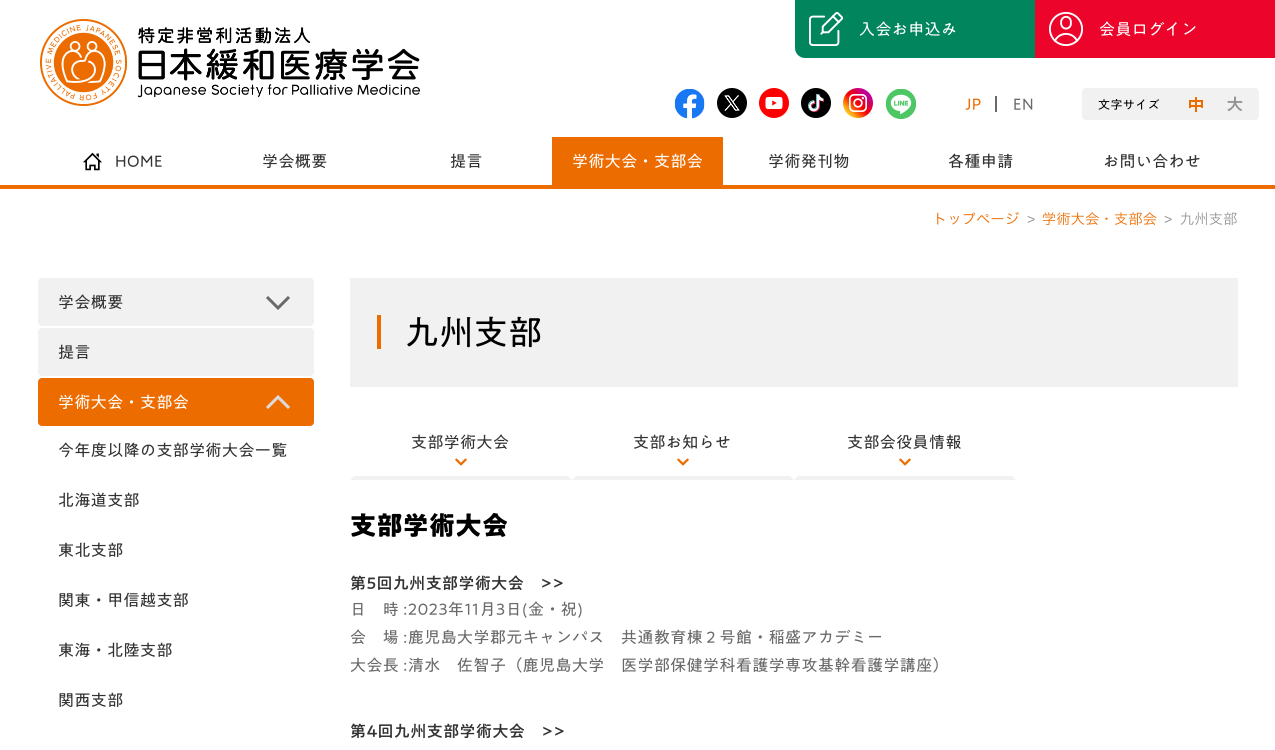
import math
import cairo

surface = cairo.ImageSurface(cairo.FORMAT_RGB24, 1275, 750)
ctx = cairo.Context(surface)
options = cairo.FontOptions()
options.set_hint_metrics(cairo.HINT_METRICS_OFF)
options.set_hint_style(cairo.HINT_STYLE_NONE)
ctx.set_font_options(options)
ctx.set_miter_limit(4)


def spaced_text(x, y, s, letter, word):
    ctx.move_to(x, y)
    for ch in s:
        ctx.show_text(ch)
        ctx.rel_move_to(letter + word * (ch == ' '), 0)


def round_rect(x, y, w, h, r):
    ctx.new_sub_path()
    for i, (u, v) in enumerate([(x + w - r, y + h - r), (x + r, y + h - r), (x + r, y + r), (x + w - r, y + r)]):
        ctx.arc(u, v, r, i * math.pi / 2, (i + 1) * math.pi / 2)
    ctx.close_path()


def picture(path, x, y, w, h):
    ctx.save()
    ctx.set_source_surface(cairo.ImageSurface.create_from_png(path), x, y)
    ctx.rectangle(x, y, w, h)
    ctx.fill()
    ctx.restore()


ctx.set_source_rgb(1, 1, 1)
ctx.paint()
picture("img1.png", 40, 19, 380, 87)
ctx.set_source_rgb(0, 0.522, 0.365)
ctx.new_path()
ctx.move_to(795, 0)
ctx.line_to(1035, 0)
ctx.line_to(1035, 58)
ctx.line_to(805, 58)
ctx.curve_to(799.5, 58, 795, 53.5, 795, 48)
ctx.close_path()
ctx.fill()
picture("img2.png", 809, 12, 34, 34)
ctx.select_font_face("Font")
ctx.set_font_size(16)
ctx.set_source_rgb(1, 1, 1)
spaced_text(859, 35, "入会お申込み", 0.4, 0)
ctx.set_source_rgb(0.925, 0.016, 0.165)
ctx.rectangle(1035, 0, 240, 58)
ctx.fill()
picture("img3.png", 1049, 12, 34, 34)
ctx.set_source_rgb(1, 1, 1)
spaced_text(1099, 35, "会員ログイン", 0.4, 0)
picture("img4.png", 674, 89, 31, 30)
picture("img5.png", 717, 88, 30, 30)
picture("img6.png", 759, 88, 30, 30)
picture("img7.png", 801, 88, 30, 30)
picture("img8.png", 843, 88, 30, 30)
picture("img9.png", 886, 88, 30, 31)
ctx.set_source_rgb(0.929, 0.424, 0)
spaced_text(965, 110, "JP", 0.4, 0)
ctx.set_source_rgb(0.416, 0.416, 0.416)
ctx.rectangle(995, 96, 2, 16)
ctx.fill()
spaced_text(1013, 110, "EN", 0.4, 0)
ctx.set_source_rgb(0.945, 0.945, 0.945)
round_rect(1082, 88, 177, 32, 4)
ctx.fill()
ctx.set_font_size(12)
ctx.set_source_rgb(0, 0, 0)
spaced_text(1098, 109, "文字サイズ", 0.4, 0)
picture("img10.png", 1189, 97, 14, 15)
picture("img11.png", 1227, 96, 16, 16)
ctx.set_source_rgb(0.929, 0.424, 0)
ctx.rectangle(0, 185, 1275, 4)
ctx.fill()
picture("img12.png", 83, 152, 19, 19)
ctx.set_font_size(16)
ctx.set_source_rgb(0.2, 0.2, 0.2)
spaced_text(115, 167, "HOME", 0.4, 0)
spaced_text(262, 167, "学会概要", 0.4, 0)
spaced_text(450, 167, "提言", 0.4, 0)
ctx.set_source_rgb(0.929, 0.424, 0)
ctx.rectangle(552, 137, 171, 48)
ctx.fill()
ctx.set_source_rgb(1, 1, 1)
spaced_text(572, 167, "学術大会・支部会", 0.4, 0)
ctx.set_source_rgb(0.2, 0.2, 0.2)
spaced_text(768, 167, "学術発刊物", 0.4, 0)
spaced_text(948, 167, "各種申請", 0.4, 0)
spaced_text(1103, 167, "お問い合わせ", 0.4, 0)
ctx.select_font_face("Font Light")
ctx.set_font_size(14)
ctx.set_source_rgb(0.929, 0.424, 0)
spaced_text(933, 224, "トップページ", 0.4, 0)
ctx.select_font_face("Liberation Sans")
ctx.set_source_rgb(0.58, 0.58, 0.58)
spaced_text(1027, 224, ">", 0.4, 0)
ctx.select_font_face("Font Light")
ctx.set_source_rgb(0.929, 0.424, 0)
spaced_text(1042, 224, "学術大会・支部会", 0.4, 0)
ctx.select_font_face("Liberation Sans")
ctx.set_source_rgb(0.58, 0.58, 0.58)
spaced_text(1164, 224, ">", 0.4, 0)
ctx.select_font_face("Font Light")
spaced_text(1180, 224, "九州支部", 0.4, 0)
ctx.set_source_rgb(0.945, 0.945, 0.945)
round_rect(38, 278, 276, 48, 4)
ctx.fill()
ctx.select_font_face("Font")
ctx.set_font_size(16)
ctx.set_source_rgb(0.2, 0.2, 0.2)
spaced_text(58, 308, "学会概要", 0.4, 0)
picture("img13.png", 266, 296, 24, 14)
ctx.set_source_rgb(0.945, 0.945, 0.945)
round_rect(38, 328, 276, 48, 4)
ctx.fill()
ctx.set_source_rgb(0.2, 0.2, 0.2)
spaced_text(58, 358, "提言", 0.4, 0)
ctx.set_source_rgb(0.929, 0.424, 0)
round_rect(38, 378, 276, 48, 4)
ctx.fill()
ctx.set_source_rgb(1, 1, 1)
spaced_text(58, 408, "学術大会・支部会", 0.4, 0)
picture("img14.png", 266, 395, 24, 14)
ctx.set_source_rgb(0.2, 0.2, 0.2)
spaced_text(58, 456, "今年度以降の支部学術大会一覧", 0.4, 0)
spaced_text(58, 506, "北海道支部", 0.4, 0)
spaced_text(58, 556, "東北支部", 0.4, 0)
spaced_text(58, 606, "関東・甲信越支部", 0.4, 0)
spaced_text(58, 656, "東海・北陸支部", 0.4, 0)
spaced_text(58, 706, "関西支部", 0.4, 0)
ctx.set_source_rgb(0.945, 0.945, 0.945)
ctx.rectangle(350, 278, 888, 109)
ctx.fill()
ctx.set_source_rgb(0.929, 0.424, 0)
ctx.rectangle(377, 315, 4, 34)
ctx.fill()
ctx.set_font_size(34)
ctx.set_source_rgb(0, 0, 0)
spaced_text(405, 345, "九州支部", 0.4, 0)
ctx.set_source_rgb(0.945, 0.945, 0.945)
ctx.new_path()
ctx.move_to(572, 480)
ctx.line_to(350, 480)
ctx.line_to(354, 476)
ctx.line_to(568, 476)
ctx.close_path()
ctx.fill()
ctx.set_source_rgb(1, 1, 1)
ctx.new_path()
ctx.move_to(350, 480)
ctx.line_to(350, 417)
ctx.line_to(354, 417)
ctx.line_to(354, 476)
ctx.close_path()
ctx.fill()
picture("img15.png", 455, 458, 12, 8)
ctx.set_font_size(16)
ctx.set_source_rgb(0.2, 0.2, 0.2)
spaced_text(411, 448, "支部学術大会", 0.4, 0)
ctx.set_source_rgb(0.945, 0.945, 0.945)
ctx.new_path()
ctx.move_to(794, 480)
ctx.line_to(572, 480)
ctx.line_to(576, 476)
ctx.line_to(790, 476)
ctx.close_path()
ctx.fill()
ctx.set_source_rgb(1, 1, 1)
ctx.new_path()
ctx.move_to(572, 480)
ctx.line_to(572, 417)
ctx.line_to(576, 417)
ctx.line_to(576, 476)
ctx.close_path()
ctx.fill()
picture("img15.png", 677, 458, 12, 8)
ctx.set_source_rgb(0.2, 0.2, 0.2)
spaced_text(633, 448, "支部お知らせ", 0.4, 0)
ctx.set_source_rgb(0.945, 0.945, 0.945)
ctx.new_path()
ctx.move_to(1016, 480)
ctx.line_to(794, 480)
ctx.line_to(798, 476)
ctx.line_to(1012, 476)
ctx.close_path()
ctx.fill()
ctx.set_source_rgb(1, 1, 1)
ctx.new_path()
ctx.move_to(794, 480)
ctx.line_to(794, 417)
ctx.line_to(798, 417)
ctx.line_to(798, 476)
ctx.close_path()
ctx.fill()
picture("img15.png", 899, 458, 12, 8)
ctx.set_source_rgb(0.2, 0.2, 0.2)
spaced_text(847, 448, "支部会役員情報", 0.4, 0)
ctx.select_font_face("Font SemiBold")
ctx.set_font_size(26)
ctx.set_source_rgb(0, 0, 0)
spaced_text(350, 535, "支部学術大会", 0.4, 0)
ctx.select_font_face("Font Medium")
ctx.set_font_size(16)
ctx.set_source_rgb(0.2, 0.2, 0.2)
spaced_text(350, 589, "第5回九州支部学術大会　>>", 0.4, 0)
ctx.select_font_face("Font")
ctx.set_source_rgb(0.416, 0.416, 0.416)
spaced_text(350, 615, "日　時 :2023年11月3日(金・祝)", 0.4, 0)
spaced_text(350, 643, "会　場 :鹿児島大学郡元キャンパス　共通教育棟２号館・稲盛アカデミー", 0.4, 0)
spaced_text(350, 671, "大会長 :清水　佐智子（鹿児島大学　医学部保健学科看護学専攻基幹看護学講座）", 0.4, 0)
ctx.select_font_face("Font Medium")
ctx.set_source_rgb(0.2, 0.2, 0.2)
spaced_text(350, 737, "第4回九州支部学術大会　>>", 0.4, 0)
surface.write_to_png("page.png")
